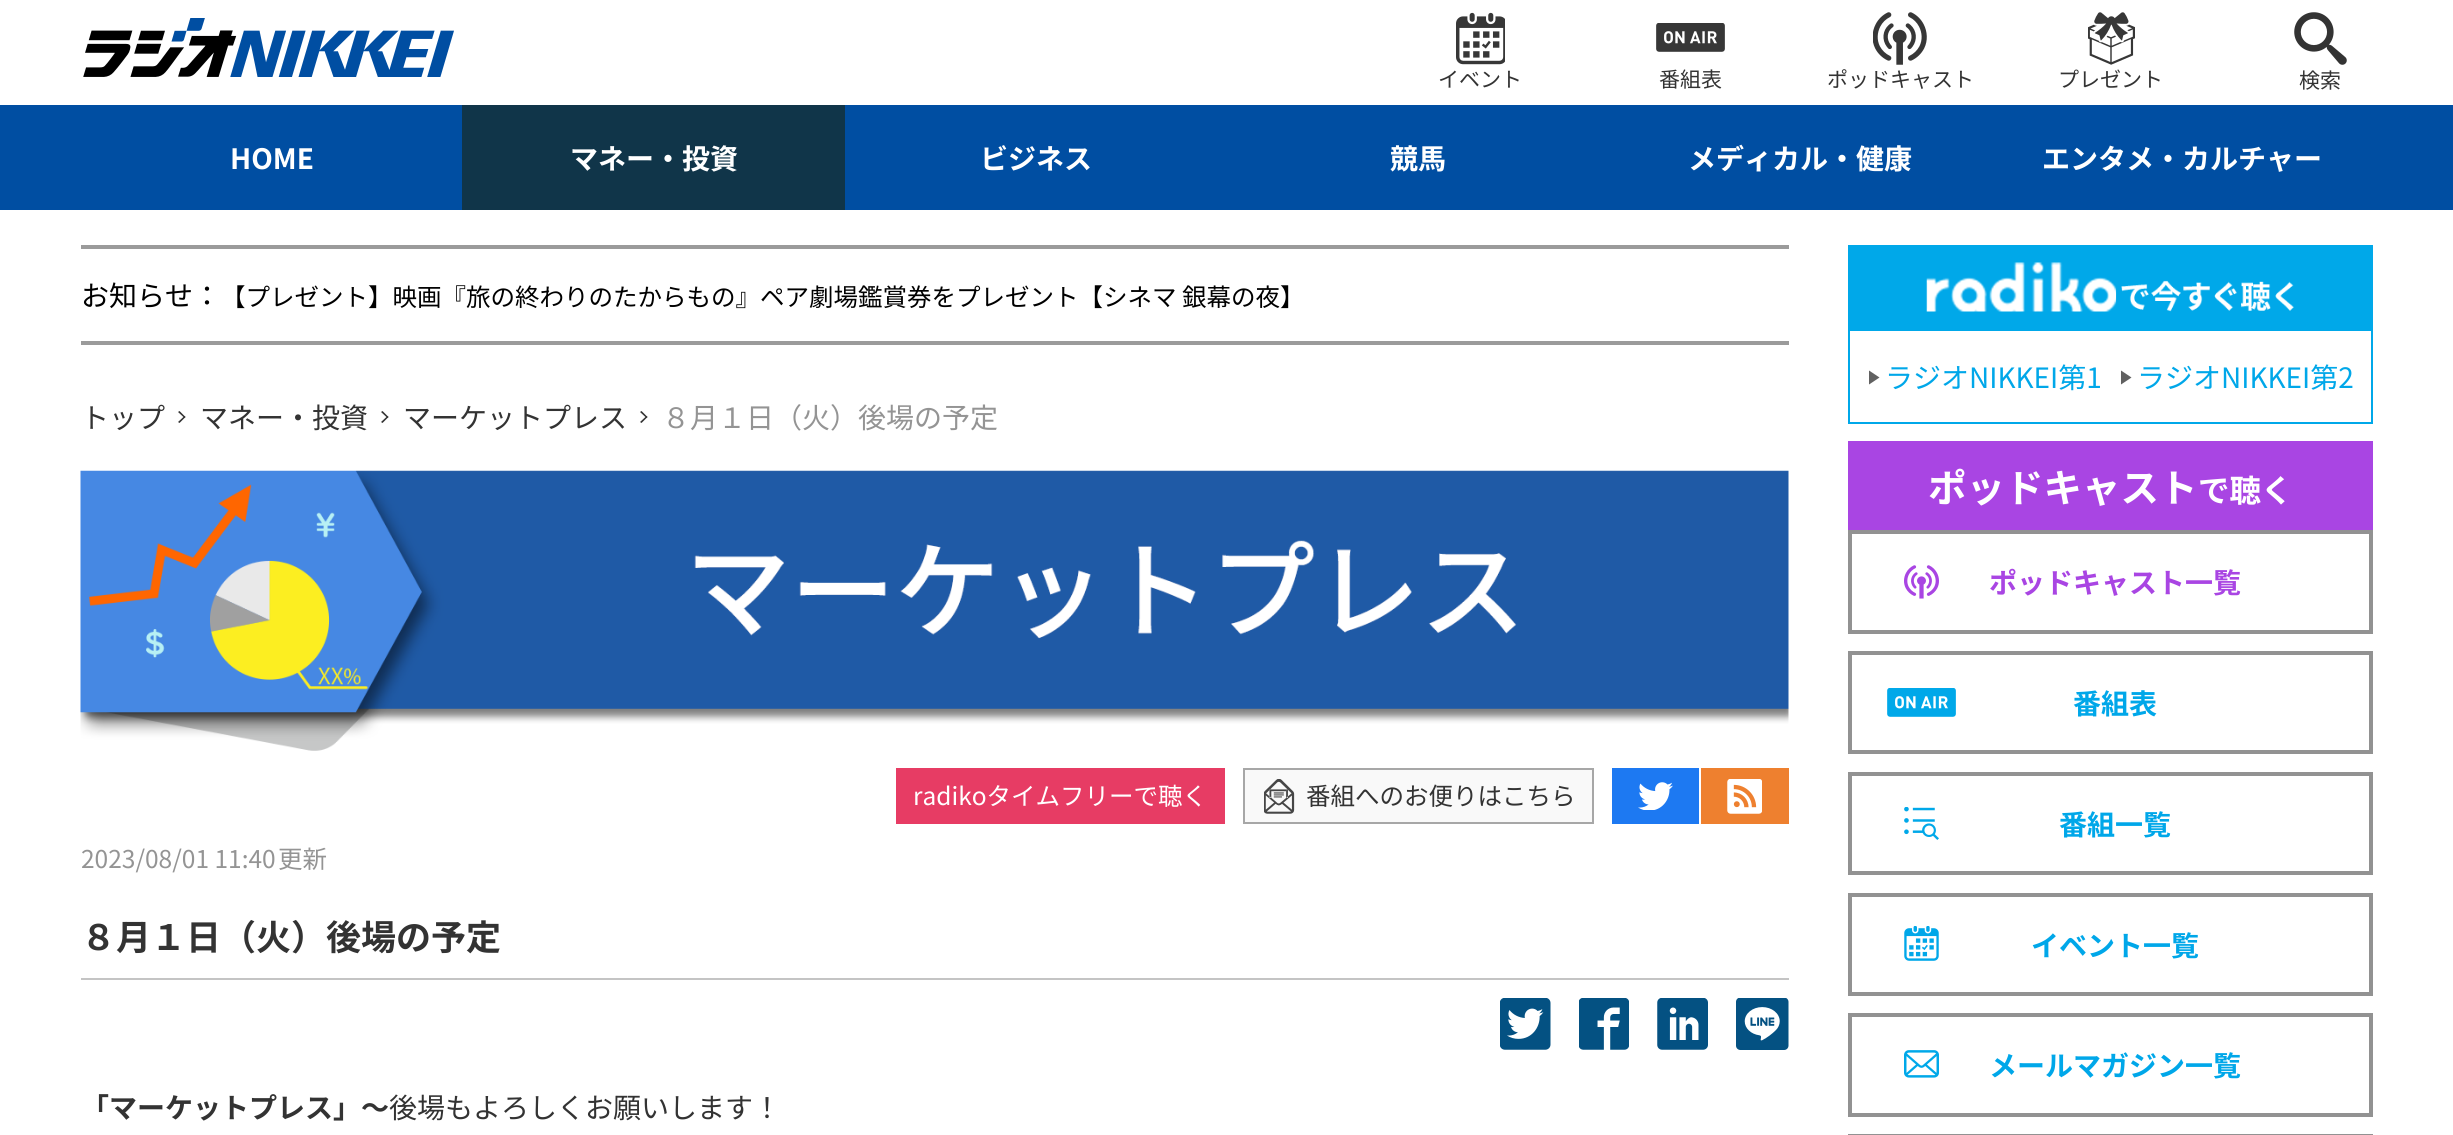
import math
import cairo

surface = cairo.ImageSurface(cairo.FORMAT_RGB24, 2453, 1135)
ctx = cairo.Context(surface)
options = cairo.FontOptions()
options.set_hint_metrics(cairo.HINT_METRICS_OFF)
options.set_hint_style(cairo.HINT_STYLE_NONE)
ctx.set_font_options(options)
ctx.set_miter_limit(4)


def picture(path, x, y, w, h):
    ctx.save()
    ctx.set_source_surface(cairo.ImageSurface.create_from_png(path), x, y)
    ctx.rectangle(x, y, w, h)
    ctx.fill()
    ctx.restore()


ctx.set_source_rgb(1, 1, 1)
ctx.paint()
picture("img1.png", 83, 18, 371, 59)
picture("img2.png", 1456, 12, 49, 53)
ctx.select_font_face("Noto Sans JP")
ctx.set_font_size(21)
ctx.set_source_rgb(0.2, 0.2, 0.2)
ctx.move_to(1438, 87)
ctx.show_text("イベント")
picture("img3.png", 1656, 23, 69, 29)
ctx.move_to(1659, 87)
ctx.show_text("番組表")
picture("img4.png", 1873, 12, 54, 53)
ctx.move_to(1827, 87)
ctx.show_text("ポッドキャスト")
picture("img5.png", 2088, 12, 47, 53)
ctx.move_to(2058, 87)
ctx.show_text("プレゼント")
picture("img6.png", 2294, 12, 53, 53)
ctx.move_to(2299, 88)
ctx.show_text("検索")
ctx.set_source_rgb(0, 0.306, 0.635)
ctx.rectangle(0, 105, 2453, 105)
ctx.fill()
ctx.select_font_face("Noto Sans JP", cairo.FONT_SLANT_NORMAL, cairo.FONT_WEIGHT_BOLD)
ctx.set_font_size(28)
ctx.set_source_rgb(1, 1, 1)
ctx.move_to(230, 169)
ctx.show_text("HOME")
ctx.set_source_rgb(0.063, 0.208, 0.286)
ctx.rectangle(462, 105, 383, 105)
ctx.fill()
ctx.set_source_rgb(1, 1, 1)
ctx.move_to(570, 169)
ctx.show_text("マネー・投資")
ctx.move_to(980, 169)
ctx.show_text("ビジネス")
ctx.move_to(1390, 169)
ctx.show_text("競馬")
ctx.move_to(1688, 169)
ctx.show_text("メディカル・健康")
ctx.move_to(2042, 169)
ctx.show_text("エンタメ・カルチャー")
ctx.set_source_rgb(0.608, 0.608, 0.608)
ctx.rectangle(81, 245, 1708, 4)
ctx.fill()
ctx.rectangle(81, 341, 1708, 4)
ctx.fill()
ctx.select_font_face("Noto Sans JP")
ctx.set_source_rgb(0, 0, 0)
ctx.move_to(81, 306)
ctx.show_text("お知らせ：")
ctx.set_font_size(24.5)
ctx.move_to(221, 306)
ctx.show_text("【プレゼント】映画『旅の終わりのたからもの』ペア劇場鑑賞券をプレゼント【シネマ 銀幕の夜】")
ctx.set_font_size(28)
ctx.set_source_rgb(0.2, 0.2, 0.2)
ctx.move_to(81, 428)
ctx.show_text("トップ")
ctx.new_path()
ctx.move_to(185.5, 417)
ctx.line_to(179.5, 423)
ctx.line_to(178, 422)
ctx.line_to(184.5, 416)
ctx.close_path()
ctx.fill()
ctx.new_path()
ctx.move_to(185.5, 417)
ctx.line_to(184.5, 418)
ctx.line_to(178, 412)
ctx.line_to(179.5, 411)
ctx.close_path()
ctx.fill()
ctx.move_to(200, 428)
ctx.show_text("マネー・投資")
ctx.new_path()
ctx.move_to(388.5, 417)
ctx.line_to(382.5, 423)
ctx.line_to(381, 422)
ctx.line_to(387.5, 416)
ctx.close_path()
ctx.fill()
ctx.new_path()
ctx.move_to(388.5, 417)
ctx.line_to(387.5, 418)
ctx.line_to(381, 412)
ctx.line_to(382.5, 411)
ctx.close_path()
ctx.fill()
ctx.move_to(403, 428)
ctx.show_text("マーケットプレス")
ctx.new_path()
ctx.move_to(647.5, 417)
ctx.line_to(641.5, 423)
ctx.line_to(640, 422)
ctx.line_to(646.5, 416)
ctx.close_path()
ctx.fill()
ctx.new_path()
ctx.move_to(647.5, 417)
ctx.line_to(646.5, 418)
ctx.line_to(640, 412)
ctx.line_to(641.5, 411)
ctx.close_path()
ctx.fill()
ctx.set_source_rgb(0.58, 0.58, 0.58)
ctx.move_to(662, 428)
ctx.show_text("８月１日（火）後場の予定")
picture("img7.png", 80, 470, 1709, 281)
ctx.set_source_rgb(0.906, 0.235, 0.392)
ctx.rectangle(896, 768, 329, 56)
ctx.fill()
ctx.set_font_size(24.5)
ctx.set_source_rgb(1, 1, 1)
ctx.move_to(913, 805)
ctx.show_text("radikoタイムフリーで聴く")
ctx.set_source_rgb(0.973, 0.973, 0.973)
ctx.rectangle(1244, 769, 349, 54)
ctx.fill_preserve()
ctx.set_source_rgb(0.655, 0.655, 0.655)
ctx.stroke()
picture("img8.png", 1264, 779, 31, 35)
ctx.set_source_rgb(0.2, 0.2, 0.2)
ctx.move_to(1306, 805)
ctx.show_text("番組へのお便りはこちら")
ctx.set_source_rgb(0.114, 0.475, 0.949)
ctx.rectangle(1612, 768, 87, 56)
ctx.fill()
picture("img9.png", 1638, 782, 35, 28)
ctx.set_source_rgb(0.933, 0.502, 0.184)
ctx.rectangle(1701, 768, 88, 56)
ctx.fill()
picture("img10.png", 1727, 779, 35, 35)
ctx.set_source_rgb(0.58, 0.58, 0.58)
ctx.move_to(81, 868)
ctx.show_text("2023/08/01 11:40")
ctx.move_to(278, 868)
ctx.show_text("更新")
ctx.set_source_rgb(0.769, 0.769, 0.769)
ctx.rectangle(81, 978, 1708, 2)
ctx.fill()
ctx.select_font_face("Noto Sans JP", cairo.FONT_SLANT_NORMAL, cairo.FONT_WEIGHT_BOLD)
ctx.set_font_size(35)
ctx.set_source_rgb(0.2, 0.2, 0.2)
ctx.move_to(81, 950)
ctx.show_text("８月１日（火）後場の予定")
picture("img11.png", 1500, 998, 51, 52)
picture("img12.png", 1579, 998, 50, 52)
picture("img13.png", 1657, 998, 51, 52)
picture("img14.png", 1736, 998, 53, 52)
ctx.set_font_size(28)
ctx.move_to(81, 1118)
ctx.show_text("「マーケットプレス」～")
ctx.select_font_face("Noto Sans JP")
ctx.move_to(389, 1118)
ctx.show_text("後場もよろしくお願いします！")
ctx.set_source_rgb(0, 0.659, 0.914)
ctx.rectangle(1848, 245, 525, 84)
ctx.fill()
picture("img15.png", 1926, 262, 368, 50)
ctx.rectangle(1849, 330, 523, 93)
ctx.stroke()
ctx.set_source_rgb(0.38, 0.38, 0.38)
ctx.new_path()
ctx.move_to(1869, 384.5)
ctx.line_to(1869, 370.5)
ctx.line_to(1879.5, 377.5)
ctx.close_path()
ctx.fill()
ctx.set_source_rgb(0, 0.655, 0.914)
ctx.move_to(1885, 388)
ctx.show_text("ラジオNIKKEI第1")
ctx.set_source_rgb(0.38, 0.38, 0.38)
ctx.new_path()
ctx.move_to(2121, 384.5)
ctx.line_to(2121, 370.5)
ctx.line_to(2131.5, 377.5)
ctx.close_path()
ctx.fill()
ctx.set_source_rgb(0, 0.655, 0.914)
ctx.move_to(2137, 388)
ctx.show_text("ラジオNIKKEI第2")
ctx.set_source_rgb(0.663, 0.271, 0.89)
ctx.rectangle(1848, 441, 525, 89)
ctx.fill()
ctx.select_font_face("Noto Sans JP", cairo.FONT_SLANT_NORMAL, cairo.FONT_WEIGHT_BOLD)
ctx.set_font_size(38.5)
ctx.set_source_rgb(1, 1, 1)
ctx.move_to(1928, 502)
ctx.show_text("ポッドキャスト")
ctx.set_font_size(31.5)
ctx.move_to(2198, 502)
ctx.show_text("で聴く")
ctx.rectangle(1850, 532, 521, 100)
ctx.set_source_rgb(0.573, 0.573, 0.573)
ctx.set_line_width(4)
ctx.stroke()
picture("img16.png", 1904, 565, 35, 34)
ctx.set_font_size(28)
ctx.set_source_rgb(0.663, 0.271, 0.89)
ctx.move_to(1989, 593)
ctx.show_text("ポッドキャスト一覧")
ctx.rectangle(1850, 653, 521, 99)
ctx.set_source_rgb(0.573, 0.573, 0.573)
ctx.stroke()
picture("img17.png", 1887, 688, 69, 29)
ctx.set_source_rgb(0, 0.655, 0.914)
ctx.move_to(2073, 714)
ctx.show_text("番組表")
ctx.rectangle(1850, 774, 521, 99)
ctx.set_source_rgb(0.573, 0.573, 0.573)
ctx.stroke()
picture("img18.png", 1904, 807, 35, 33)
ctx.set_source_rgb(0, 0.655, 0.914)
ctx.move_to(2059, 835)
ctx.show_text("番組一覧")
ctx.rectangle(1850, 895, 521, 99)
ctx.set_source_rgb(0.573, 0.573, 0.573)
ctx.stroke()
picture("img19.png", 1904, 926, 35, 35)
ctx.set_source_rgb(0, 0.655, 0.914)
ctx.move_to(2031, 956)
ctx.show_text("イベント一覧")
ctx.rectangle(1850, 1015, 521, 100)
ctx.set_source_rgb(0.573, 0.573, 0.573)
ctx.stroke()
picture("img20.png", 1904, 1050, 35, 28)
ctx.set_source_rgb(0, 0.655, 0.914)
ctx.move_to(1989, 1076)
ctx.show_text("メールマガジン一覧")
ctx.rectangle(1850, 1136, 521, 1)
ctx.set_source_rgb(0.573, 0.573, 0.573)
ctx.stroke()
surface.write_to_png("page.png")
